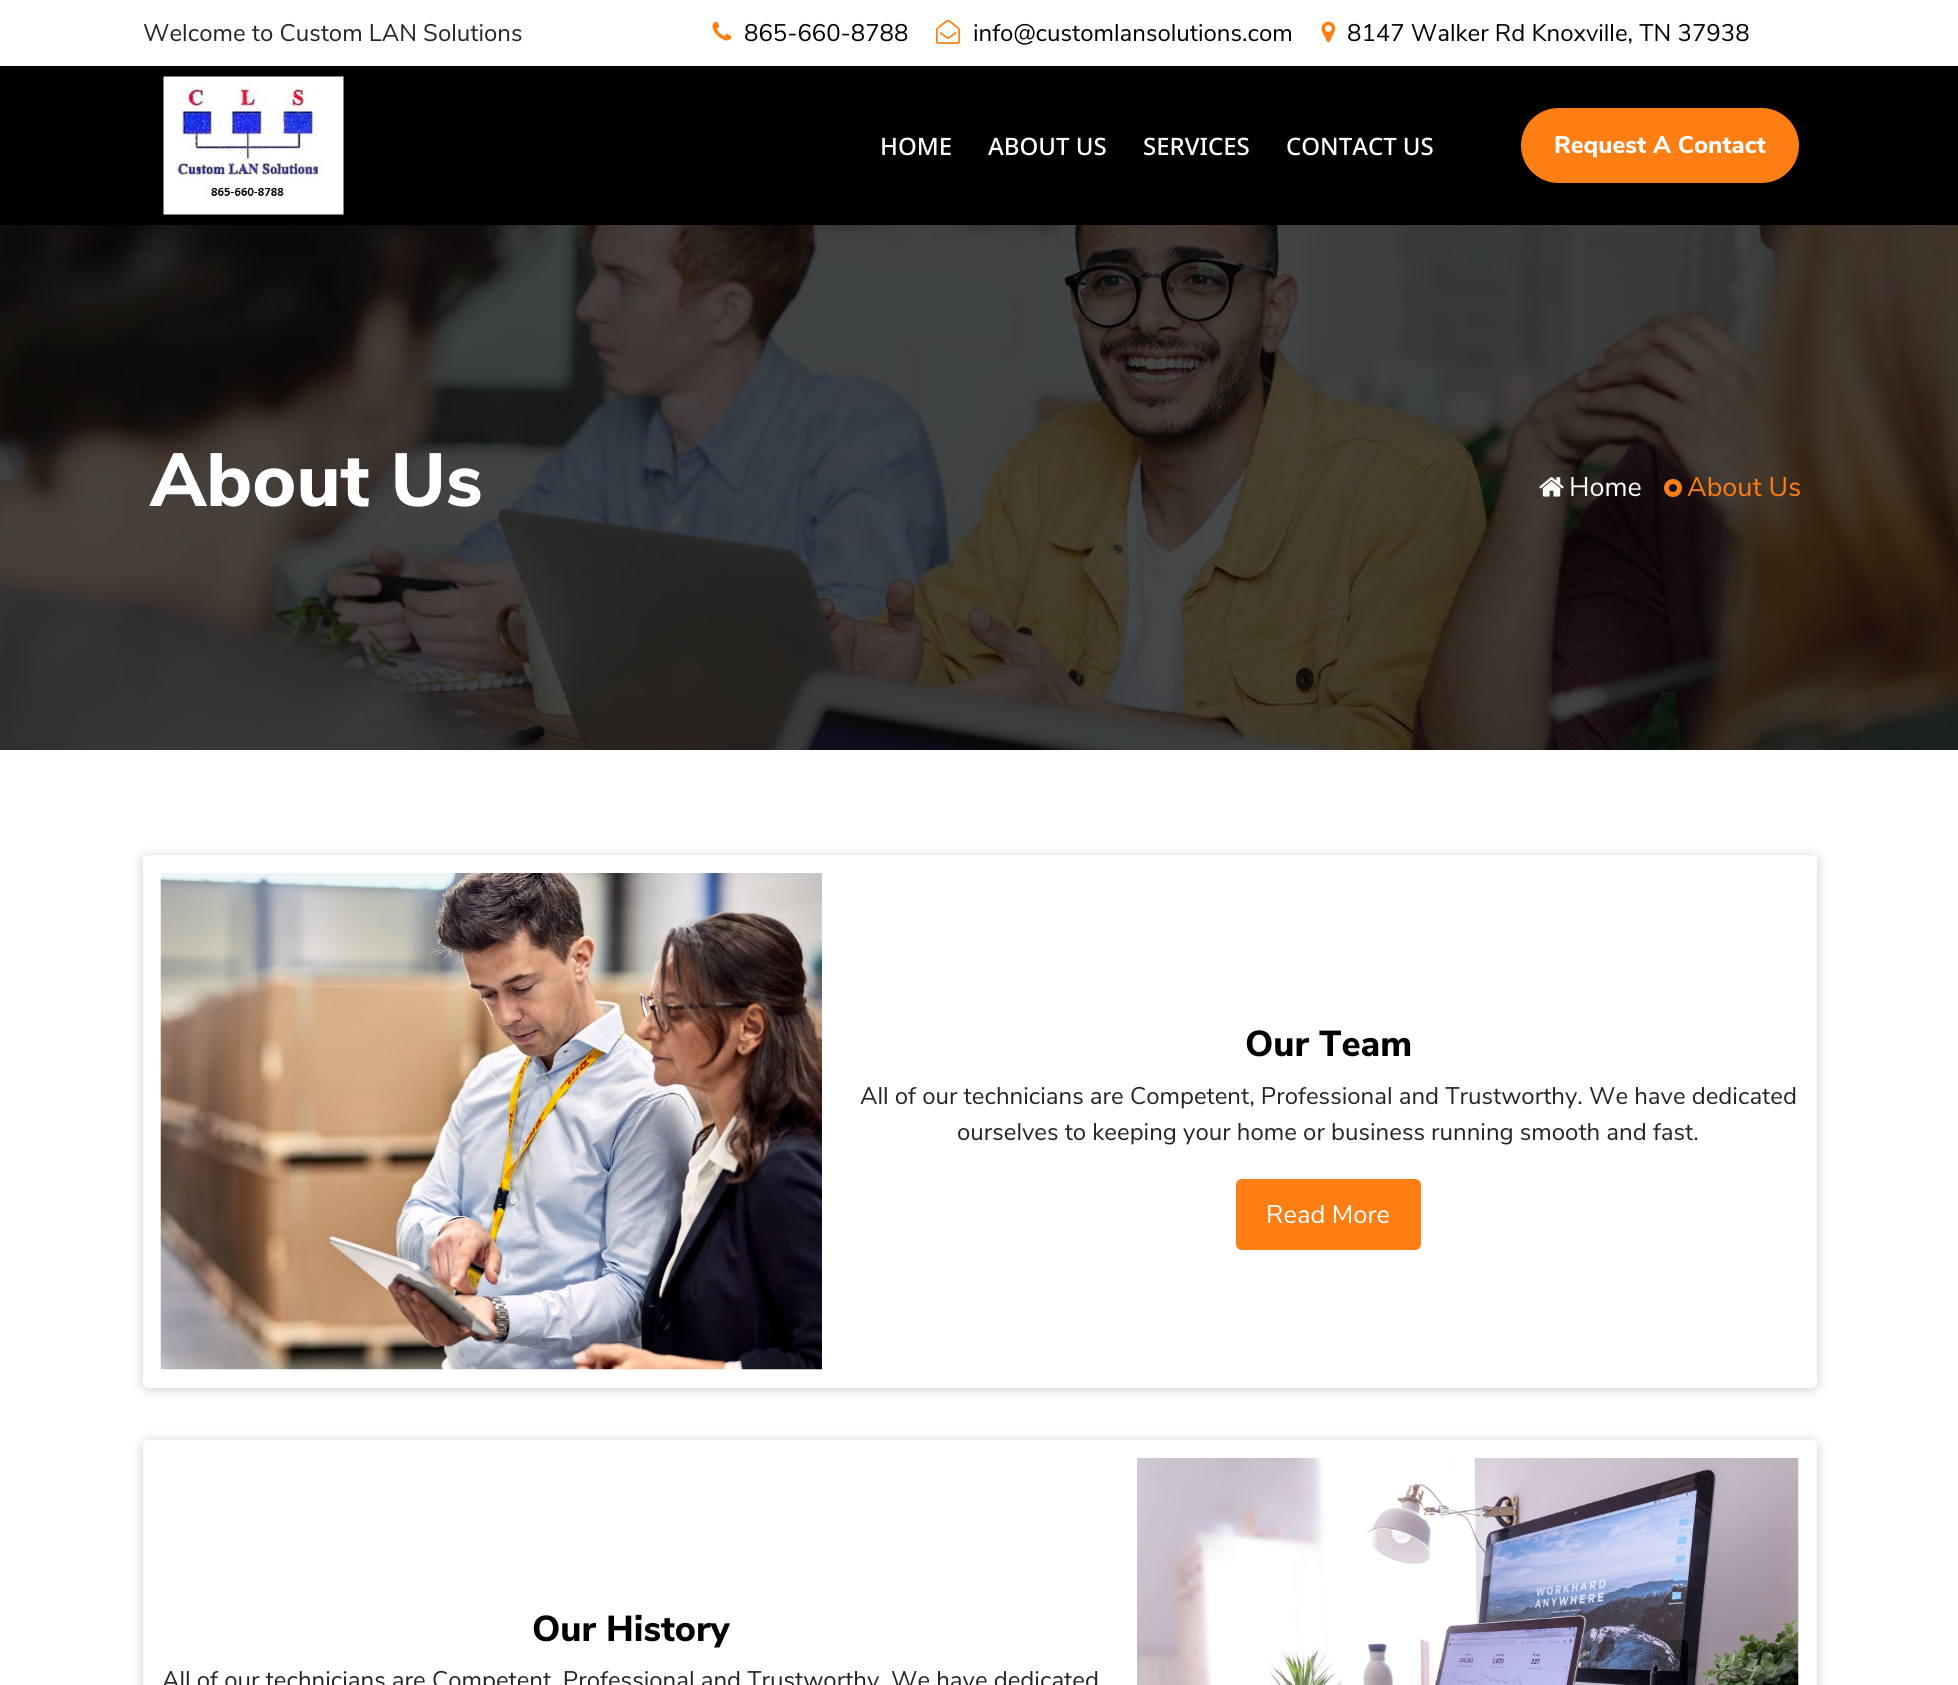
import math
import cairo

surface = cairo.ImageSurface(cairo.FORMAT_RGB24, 1958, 1685)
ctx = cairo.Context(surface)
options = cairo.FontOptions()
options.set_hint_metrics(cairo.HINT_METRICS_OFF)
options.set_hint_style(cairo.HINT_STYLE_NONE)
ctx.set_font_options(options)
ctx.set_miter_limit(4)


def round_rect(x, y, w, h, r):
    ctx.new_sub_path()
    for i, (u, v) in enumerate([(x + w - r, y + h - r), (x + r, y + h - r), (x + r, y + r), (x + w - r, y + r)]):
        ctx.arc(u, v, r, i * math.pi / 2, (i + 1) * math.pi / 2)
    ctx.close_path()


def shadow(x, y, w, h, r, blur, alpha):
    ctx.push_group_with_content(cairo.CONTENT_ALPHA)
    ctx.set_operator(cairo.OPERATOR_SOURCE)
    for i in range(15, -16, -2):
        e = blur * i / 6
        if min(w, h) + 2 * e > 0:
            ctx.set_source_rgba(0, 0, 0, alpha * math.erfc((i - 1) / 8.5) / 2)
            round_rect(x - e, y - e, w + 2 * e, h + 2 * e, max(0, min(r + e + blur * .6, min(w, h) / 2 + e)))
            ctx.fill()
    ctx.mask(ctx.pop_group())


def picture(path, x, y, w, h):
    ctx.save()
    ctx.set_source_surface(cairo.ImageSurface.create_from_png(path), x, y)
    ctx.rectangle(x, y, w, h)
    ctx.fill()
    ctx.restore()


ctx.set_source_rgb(1, 1, 1)
ctx.paint()
ctx.select_font_face("Nunito Sans")
ctx.set_font_size(24)
ctx.set_source_rgb(0.129, 0.145, 0.161)
ctx.move_to(143, 41)
ctx.show_text("Welcome to Custom LAN Solutions")
picture("img1.png", 712, 21, 20, 20)
ctx.set_source_rgb(0, 0, 0)
ctx.move_to(744, 41)
ctx.show_text("865-660-8788")
picture("img2.png", 936, 20, 24, 24)
ctx.move_to(973, 41)
ctx.show_text("info@customlansolutions.com")
picture("img3.png", 1321, 21, 15, 22)
ctx.move_to(1347, 41)
ctx.show_text("8147 Walker Rd Knoxville, TN 37938")
ctx.rectangle(0, 66, 1958, 159)
ctx.fill()
picture("img4.png", 163, 76, 181, 139)
ctx.select_font_face("Noto Sans Medium")
ctx.set_source_rgb(1, 1, 1)
ctx.move_to(880, 155)
ctx.show_text("HOME")
ctx.move_to(988, 155)
ctx.show_text("ABOUT US")
ctx.move_to(1143, 155)
ctx.show_text("SERVICES")
ctx.move_to(1286, 155)
ctx.show_text("CONTACT US")
ctx.set_source_rgb(0.992, 0.494, 0.078)
round_rect(1522.5, 109.5, 275, 72, 36)
ctx.fill_preserve()
ctx.set_line_width(3)
ctx.stroke()
ctx.select_font_face("Nunito Sans ExtraBold")
ctx.set_source_rgb(1, 1, 1)
ctx.move_to(1554, 153)
ctx.show_text("Request A Contact")
picture("img5.png", 0, 225, 1958, 525)
ctx.set_font_size(75)
ctx.move_to(150, 506)
ctx.show_text("About Us")
picture("img6.png", 1539, 477, 25, 20)
ctx.select_font_face("Nunito Sans")
ctx.set_font_size(27)
ctx.move_to(1569, 496)
ctx.show_text("Home")
ctx.new_path()
ctx.arc(1673, 488, 6.5, 0, 2 * math.pi)
ctx.set_source_rgb(0.992, 0.494, 0.078)
ctx.set_line_width(5)
ctx.stroke()
ctx.move_to(1687, 496)
ctx.show_text("About Us")
ctx.save()
ctx.set_fill_rule(cairo.FILL_RULE_EVEN_ODD)
ctx.new_path()
ctx.move_to(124, 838)
ctx.line_to(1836, 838)
ctx.line_to(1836, 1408)
ctx.line_to(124, 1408)
ctx.close_path()
ctx.move_to(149, 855)
ctx.line_to(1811, 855)
ctx.curve_to(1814.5, 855, 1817, 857.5, 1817, 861)
ctx.line_to(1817, 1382)
ctx.curve_to(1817, 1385.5, 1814.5, 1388, 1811, 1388)
ctx.line_to(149, 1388)
ctx.curve_to(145.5, 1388, 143, 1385.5, 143, 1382)
ctx.line_to(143, 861)
ctx.curve_to(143, 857.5, 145.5, 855, 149, 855)
ctx.close_path()
ctx.clip()
ctx.set_source_rgb(0.8, 0.8, 0.8)
shadow(143, 857, 1674, 532, 6, 6, 1)
ctx.restore()
picture("img7.png", 160, 873, 662, 497)
ctx.select_font_face("Nunito Sans ExtraBold")
ctx.set_font_size(36)
ctx.set_source_rgb(0, 0, 0)
ctx.move_to(1245, 1056)
ctx.show_text("Our Team")
ctx.select_font_face("Nunito Sans")
ctx.set_font_size(24)
ctx.set_source_rgb(0.129, 0.145, 0.161)
ctx.move_to(860, 1104)
ctx.show_text("All of our technicians are Competent, Professional and Trustworthy. We have dedicated")
ctx.move_to(957, 1140)
ctx.show_text("ourselves to keeping your home or business running smooth and fast.")
ctx.set_source_rgb(0.992, 0.494, 0.078)
round_rect(1236, 1179, 185, 71, 6)
ctx.fill()
ctx.set_font_size(25.5)
ctx.set_source_rgb(1, 1, 1)
ctx.move_to(1266, 1223)
ctx.show_text("Read More")
ctx.save()
ctx.set_fill_rule(cairo.FILL_RULE_EVEN_ODD)
ctx.new_path()
ctx.move_to(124, 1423)
ctx.line_to(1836, 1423)
ctx.line_to(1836, 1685)
ctx.line_to(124, 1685)
ctx.close_path()
ctx.move_to(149, 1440)
ctx.line_to(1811, 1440)
ctx.curve_to(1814.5, 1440, 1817, 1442.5, 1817, 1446)
ctx.line_to(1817, 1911)
ctx.curve_to(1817, 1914.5, 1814.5, 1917, 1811, 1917)
ctx.line_to(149, 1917)
ctx.curve_to(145.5, 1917, 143, 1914.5, 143, 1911)
ctx.line_to(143, 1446)
ctx.curve_to(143, 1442.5, 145.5, 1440, 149, 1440)
ctx.close_path()
ctx.clip()
ctx.set_source_rgb(0.8, 0.8, 0.8)
shadow(143, 1442, 1674, 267, 6, 6, 1)
ctx.restore()
ctx.select_font_face("Nunito Sans ExtraBold")
ctx.set_font_size(36)
ctx.set_source_rgb(0, 0, 0)
ctx.move_to(532, 1641)
ctx.show_text("Our History")
ctx.select_font_face("Nunito Sans")
ctx.set_font_size(24)
ctx.set_source_rgb(0.129, 0.145, 0.161)
ctx.move_to(162, 1688)
ctx.show_text("All of our technicians are Competent, Professional and Trustworthy. We have dedicated")
picture("img8.png", 1137, 1458, 662, 227)
surface.write_to_png("page.png")
